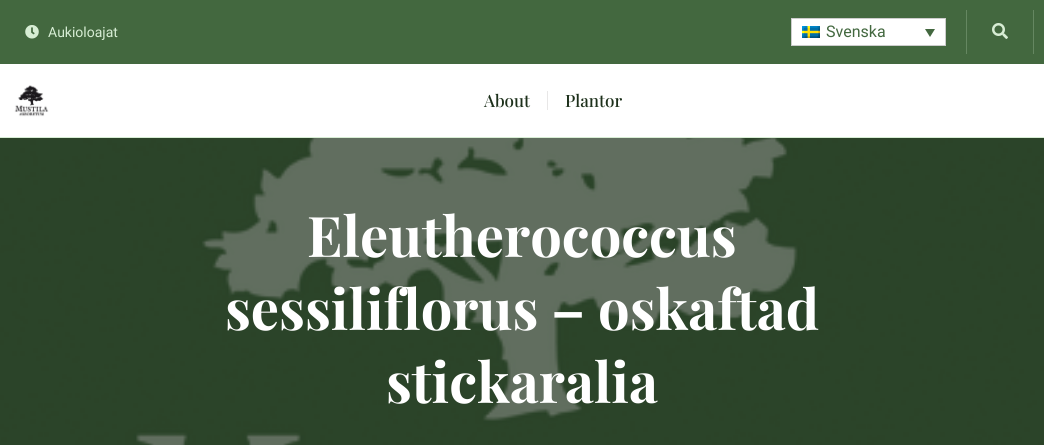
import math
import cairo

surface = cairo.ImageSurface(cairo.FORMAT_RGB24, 1044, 445)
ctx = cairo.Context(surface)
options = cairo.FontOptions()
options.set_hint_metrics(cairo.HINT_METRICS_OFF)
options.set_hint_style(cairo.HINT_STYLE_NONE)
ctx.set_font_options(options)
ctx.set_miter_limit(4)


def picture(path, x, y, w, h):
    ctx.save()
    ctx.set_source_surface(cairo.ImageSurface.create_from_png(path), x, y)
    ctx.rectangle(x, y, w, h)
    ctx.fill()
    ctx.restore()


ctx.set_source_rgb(1, 1, 1)
ctx.paint()
ctx.set_source_rgb(0.263, 0.408, 0.247)
ctx.rectangle(0, 0, 1044, 64)
ctx.fill()
picture("img1.png", 25, 25, 14, 14)
ctx.select_font_face("Roboto")
ctx.set_font_size(14)
ctx.set_source_rgb(0.843, 0.929, 0.831)
ctx.move_to(48, 37)
ctx.show_text("Aukioloajat")
ctx.set_source_rgb(1, 1, 1)
ctx.rectangle(791.5, 18.5, 154, 27)
ctx.fill_preserve()
ctx.set_source_rgb(0.804, 0.804, 0.804)
ctx.set_line_width(1)
ctx.stroke()
picture("img2.png", 802, 26, 18, 12)
ctx.set_font_size(16)
ctx.set_source_rgb(0.263, 0.408, 0.247)
ctx.move_to(826, 37)
ctx.show_text("Svenska")
ctx.new_path()
ctx.move_to(925, 29)
ctx.line_to(935, 29)
ctx.line_to(930, 37)
ctx.close_path()
ctx.fill()
ctx.set_source_rgb(0.396, 0.529, 0.38)
ctx.rectangle(1033, 10, 1, 44)
ctx.fill()
ctx.rectangle(966, 10, 1, 44)
ctx.fill()
picture("img3.png", 992, 23, 16, 16)
ctx.set_source_rgb(0.843, 0.929, 0.831)
ctx.rectangle(0, 137, 1044, 1)
ctx.fill()
picture("img4.png", 14, 85, 35, 32)
ctx.select_font_face("Playfair Display Medium")
ctx.set_font_size(17)
ctx.set_source_rgb(0.114, 0.188, 0.106)
ctx.move_to(484, 107)
ctx.show_text("About")
ctx.set_source_rgb(0.91, 0.906, 0.906)
ctx.rectangle(547, 91, 1, 19)
ctx.fill()
ctx.set_source_rgb(0.114, 0.188, 0.106)
ctx.move_to(565, 107)
ctx.show_text("Plantor")
ctx.set_source_rgb(0.157, 0.255, 0.149)
ctx.rectangle(0, 138, 1044, 307)
ctx.fill()
picture("img5.png", 0, 138, 1044, 307)
ctx.select_font_face("Playfair Display", cairo.FONT_SLANT_NORMAL, cairo.FONT_WEIGHT_BOLD)
ctx.set_font_size(56)
ctx.set_source_rgb(1, 1, 1)
ctx.move_to(307, 257)
ctx.show_text("Eleutherococcus")
ctx.move_to(225, 330)
ctx.show_text("sessiliflorus – oskaftad")
ctx.move_to(386, 403)
ctx.show_text("stickaralia")
surface.write_to_png("page.png")
